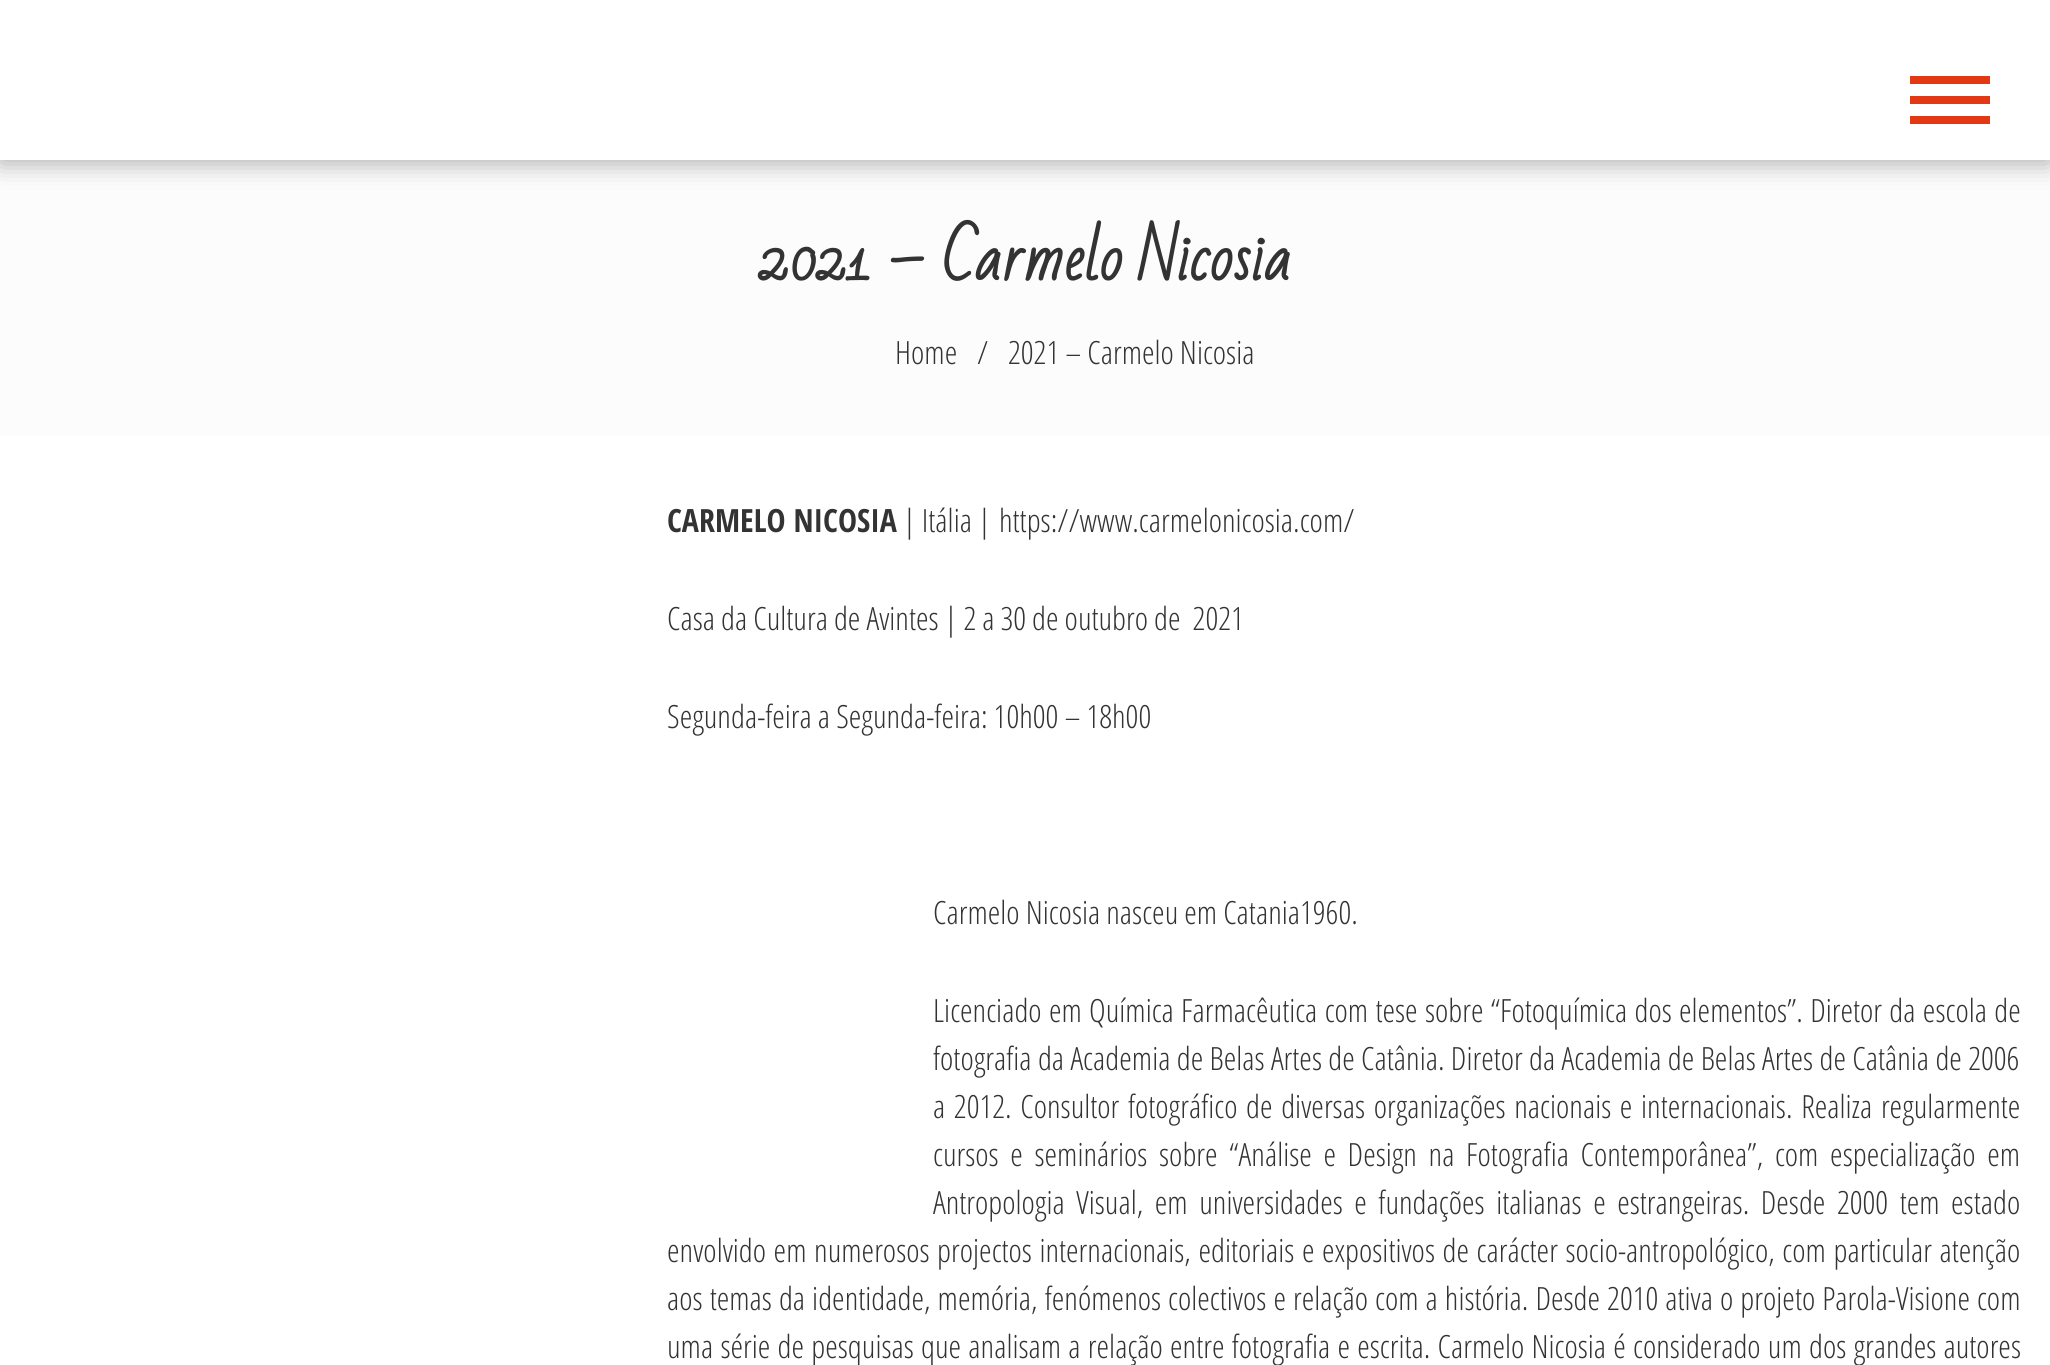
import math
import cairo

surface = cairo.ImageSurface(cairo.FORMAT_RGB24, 2050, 1365)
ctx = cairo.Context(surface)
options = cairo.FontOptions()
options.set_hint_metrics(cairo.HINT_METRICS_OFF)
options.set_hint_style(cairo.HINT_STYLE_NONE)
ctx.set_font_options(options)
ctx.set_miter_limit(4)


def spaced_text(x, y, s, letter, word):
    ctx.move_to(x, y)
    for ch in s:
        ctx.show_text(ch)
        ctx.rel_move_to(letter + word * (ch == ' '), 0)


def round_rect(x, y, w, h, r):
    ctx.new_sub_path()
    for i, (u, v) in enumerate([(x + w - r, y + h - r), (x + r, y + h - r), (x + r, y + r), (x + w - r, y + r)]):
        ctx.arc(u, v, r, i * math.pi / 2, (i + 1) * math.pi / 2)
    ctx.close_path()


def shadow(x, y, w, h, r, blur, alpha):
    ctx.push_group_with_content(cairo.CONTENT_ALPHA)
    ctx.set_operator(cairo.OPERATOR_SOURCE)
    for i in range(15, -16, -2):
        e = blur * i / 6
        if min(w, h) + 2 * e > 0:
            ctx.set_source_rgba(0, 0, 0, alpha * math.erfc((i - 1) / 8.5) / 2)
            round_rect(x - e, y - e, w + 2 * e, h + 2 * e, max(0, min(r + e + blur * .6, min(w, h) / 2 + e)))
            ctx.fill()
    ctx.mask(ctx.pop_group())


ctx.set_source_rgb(1, 1, 1)
ctx.paint()
ctx.set_source_rgb(0.988, 0.988, 0.988)
ctx.rectangle(0, 160, 2050, 276)
ctx.fill()
ctx.set_source_rgb(0, 0, 0)
shadow(0, 4, 2050, 160, 0, 12, 0.3)
ctx.set_source_rgb(1, 1, 1)
ctx.rectangle(0, 0, 2050, 160)
ctx.fill()
ctx.set_source_rgb(0.886, 0.22, 0.082)
ctx.rectangle(1910, 76, 80, 8)
ctx.fill()
ctx.rectangle(1910, 116, 80, 8)
ctx.fill()
ctx.rectangle(1910, 96, 80, 8)
ctx.fill()
ctx.select_font_face("Bad Script", cairo.FONT_SLANT_NORMAL, cairo.FONT_WEIGHT_BOLD)
ctx.set_font_size(60)
ctx.set_source_rgb(0.2, 0.2, 0.2)
ctx.move_to(759, 280)
ctx.show_text("2021 – Carmelo Nicosia")
ctx.select_font_face("Open Sans Condensed Light")
ctx.set_font_size(32)
ctx.move_to(895, 364)
ctx.show_text("Home")
ctx.move_to(977, 364)
ctx.show_text("/")
ctx.move_to(1008, 364)
ctx.show_text("2021 – Carmelo Nicosia")
ctx.select_font_face("Open Sans Condensed", cairo.FONT_SLANT_NORMAL, cairo.FONT_WEIGHT_BOLD)
ctx.move_to(667, 532)
ctx.show_text("CARMELO NICOSIA")
ctx.select_font_face("Open Sans Condensed Light")
ctx.move_to(903, 532)
ctx.show_text("| Itália |")
ctx.move_to(999, 532)
ctx.show_text("https://www.carmelonicosia.com/")
ctx.move_to(667, 630)
ctx.show_text("Casa da Cultura de Avintes | 2 a 30 de outubro de  2021")
ctx.move_to(667, 728)
ctx.show_text("Segunda-feira a Segunda-feira: 10h00 – 18h00")
ctx.move_to(933, 924)
ctx.show_text("Carmelo Nicosia nasceu em Catania1960.")
spaced_text(933, 1022, "Licenciado em Química Farmacêutica com tese sobre “Fotoquímica dos elementos”. Diretor da escola de", 0, 1.25)
spaced_text(933, 1070, "fotografia da Academia de Belas Artes de Catânia. Diretor da Academia de Belas Artes de Catânia de 2006", 0, 0.3)
spaced_text(933, 1118, "a 2012. Consultor fotográfico de diversas organizações nacionais e internacionais. Realiza regularmente", 0, 2.6)
spaced_text(933, 1166, "cursos e seminários sobre “Análise e Design na Fotografia Contemporânea”, com especialização em", 0, 5.6)
spaced_text(933, 1214, "Antropologia Visual, em universidades e fundações italianas e estrangeiras. Desde 2000 tem estado", 0, 5.5)
spaced_text(667, 1262, "envolvido em numerosos projectos internacionais, editoriais e expositivos de carácter socio-antropológico, com particular atenção", 0, 1.5)
spaced_text(667, 1310, "aos temas da identidade, memória, fenómenos colectivos e relação com a história. Desde 2010 ativa o projeto Parola-Visione com", 0, 1)
spaced_text(667, 1358, "uma série de pesquisas que analisam a relação entre fotografia e escrita. Carmelo Nicosia é considerado um dos grandes autores", 0, 1.2)
surface.write_to_png("page.png")
